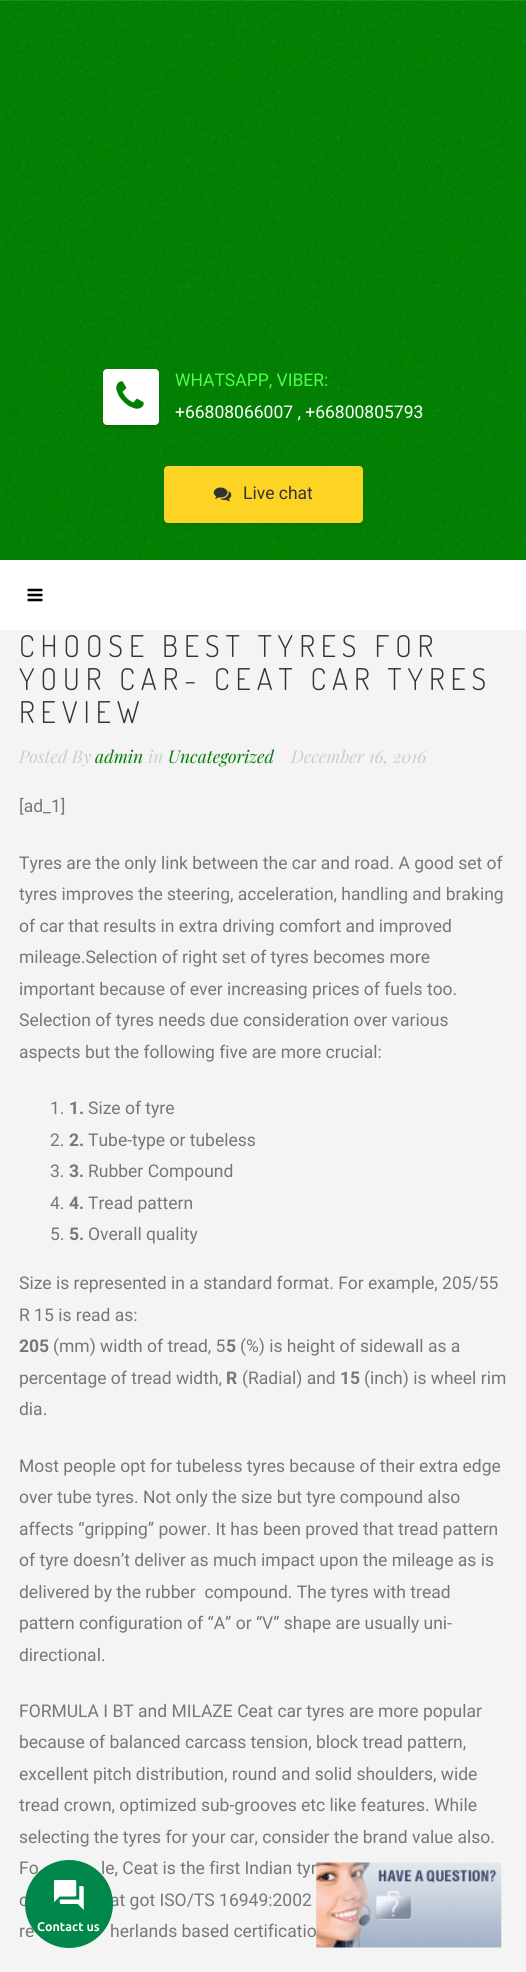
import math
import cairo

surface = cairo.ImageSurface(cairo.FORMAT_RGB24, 526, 1972)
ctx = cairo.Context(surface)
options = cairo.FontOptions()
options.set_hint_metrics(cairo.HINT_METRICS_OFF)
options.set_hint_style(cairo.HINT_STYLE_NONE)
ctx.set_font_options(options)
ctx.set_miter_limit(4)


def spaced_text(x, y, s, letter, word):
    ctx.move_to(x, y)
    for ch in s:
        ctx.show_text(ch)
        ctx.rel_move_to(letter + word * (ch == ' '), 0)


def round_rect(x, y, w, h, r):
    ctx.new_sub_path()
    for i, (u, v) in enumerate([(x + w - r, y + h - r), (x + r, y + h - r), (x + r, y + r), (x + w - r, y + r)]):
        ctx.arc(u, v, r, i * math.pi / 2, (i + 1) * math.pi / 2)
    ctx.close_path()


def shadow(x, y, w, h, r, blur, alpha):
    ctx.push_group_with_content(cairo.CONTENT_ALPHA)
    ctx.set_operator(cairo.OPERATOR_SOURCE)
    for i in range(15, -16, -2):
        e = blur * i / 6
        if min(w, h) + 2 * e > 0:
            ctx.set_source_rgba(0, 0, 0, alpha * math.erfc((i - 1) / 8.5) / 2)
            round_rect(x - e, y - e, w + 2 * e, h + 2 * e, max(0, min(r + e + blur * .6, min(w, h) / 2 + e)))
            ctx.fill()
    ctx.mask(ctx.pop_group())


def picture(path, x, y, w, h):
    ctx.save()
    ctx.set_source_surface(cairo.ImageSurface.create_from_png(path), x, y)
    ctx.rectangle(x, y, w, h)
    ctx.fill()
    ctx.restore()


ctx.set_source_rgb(0.957, 0.957, 0.957)
ctx.paint()
ctx.set_source_rgb(0, 0.502, 0)
ctx.rectangle(0, 0, 526, 560)
ctx.fill()
picture("img1.png", 0, 0, 526, 560)
ctx.set_source_rgba(1, 1, 1, 0.1)
ctx.rectangle(0, 0, 526, 1)
ctx.fill()
ctx.set_source_rgb(0, 0, 0)
shadow(103, 371, 56, 57, 4, 2, 0.12)
ctx.set_source_rgb(1, 1, 1)
round_rect(103, 369, 56, 56, 4)
ctx.fill()
picture("img2.png", 116, 381, 28, 28)
ctx.select_font_face("Roboto")
ctx.set_font_size(17.5)
ctx.set_source_rgb(0.302, 1, 0.302)
ctx.move_to(175, 386)
ctx.show_text("WHATSAPP, VIBER:")
ctx.set_source_rgb(1, 1, 1)
ctx.move_to(175, 418)
ctx.show_text("+66808066007 , +66800805793")
ctx.set_source_rgb(0, 0, 0)
shadow(164, 469, 199, 56, 4, 2, 0.12)
ctx.set_source_rgb(0.996, 0.831, 0.141)
round_rect(164, 466, 199, 57, 4)
ctx.fill()
picture("img3.png", 213, 487, 19, 15)
ctx.set_source_rgb(0.2, 0.2, 0.2)
ctx.move_to(243, 499)
ctx.show_text("Live chat")
ctx.set_source_rgb(1, 1, 1)
ctx.rectangle(0, 560, 526, 70)
ctx.fill()
picture("img4.png", 27, 588, 16, 14)
ctx.select_font_face("Dosis Light")
ctx.set_font_size(30)
ctx.set_source_rgb(0.2, 0.2, 0.2)
spaced_text(19, 657, "CHOOSE BEST TYRES FOR", 6, 0)
spaced_text(19, 690, "YOUR CAR- CEAT CAR TYRES", 6, 0)
spaced_text(19, 723, "REVIEW", 6, 0)
ctx.select_font_face("Playfair Display", cairo.FONT_SLANT_ITALIC)
ctx.set_font_size(17.5)
ctx.set_source_rgb(0.8, 0.8, 0.8)
ctx.move_to(19, 763)
ctx.show_text("Posted By")
ctx.set_source_rgb(0, 0.502, 0)
ctx.move_to(95, 763)
ctx.show_text("admin")
ctx.set_source_rgb(0.8, 0.8, 0.8)
ctx.move_to(148, 763)
ctx.show_text("in")
ctx.set_source_rgb(0, 0.502, 0)
ctx.move_to(168, 763)
ctx.show_text("Uncategorized")
ctx.set_source_rgb(0.8, 0.8, 0.8)
ctx.move_to(291, 763)
ctx.show_text("December 16, 2016")
ctx.select_font_face("Roboto")
ctx.set_source_rgb(0.467, 0.467, 0.467)
ctx.move_to(19, 812)
ctx.show_text("[ad_1]")
ctx.move_to(19, 869)
ctx.show_text("Tyres are the only link between the car and road. A good set of")
ctx.move_to(19, 900)
ctx.show_text("tyres improves the steering, acceleration, handling and braking")
ctx.move_to(19, 932)
ctx.show_text("of car that results in extra driving comfort and improved")
ctx.move_to(19, 963)
ctx.show_text("mileage.Selection of right set of tyres becomes more")
ctx.move_to(19, 995)
ctx.show_text("important because of ever increasing prices of fuels too.")
ctx.move_to(19, 1026)
ctx.show_text("Selection of tyres needs due consideration over various")
ctx.move_to(19, 1058)
ctx.show_text("aspects but the following five are more crucial:")
ctx.move_to(50, 1114)
ctx.show_text("1.")
ctx.select_font_face("Roboto", cairo.FONT_SLANT_NORMAL, cairo.FONT_WEIGHT_BOLD)
ctx.move_to(69, 1114)
ctx.show_text("1.")
ctx.select_font_face("Roboto")
ctx.move_to(88, 1114)
ctx.show_text("Size of tyre")
ctx.move_to(50, 1146)
ctx.show_text("2.")
ctx.select_font_face("Roboto", cairo.FONT_SLANT_NORMAL, cairo.FONT_WEIGHT_BOLD)
ctx.move_to(69, 1146)
ctx.show_text("2.")
ctx.select_font_face("Roboto")
ctx.move_to(88, 1146)
ctx.show_text("Tube-type or tubeless")
ctx.move_to(50, 1177)
ctx.show_text("3.")
ctx.select_font_face("Roboto", cairo.FONT_SLANT_NORMAL, cairo.FONT_WEIGHT_BOLD)
ctx.move_to(69, 1177)
ctx.show_text("3.")
ctx.select_font_face("Roboto")
ctx.move_to(88, 1177)
ctx.show_text("Rubber Compound")
ctx.move_to(50, 1209)
ctx.show_text("4.")
ctx.select_font_face("Roboto", cairo.FONT_SLANT_NORMAL, cairo.FONT_WEIGHT_BOLD)
ctx.move_to(69, 1209)
ctx.show_text("4.")
ctx.select_font_face("Roboto")
ctx.move_to(88, 1209)
ctx.show_text("Tread pattern")
ctx.move_to(50, 1240)
ctx.show_text("5.")
ctx.select_font_face("Roboto", cairo.FONT_SLANT_NORMAL, cairo.FONT_WEIGHT_BOLD)
ctx.move_to(69, 1240)
ctx.show_text("5.")
ctx.select_font_face("Roboto")
ctx.move_to(88, 1240)
ctx.show_text("Overall quality")
ctx.move_to(19, 1289)
ctx.show_text("Size is represented in a standard format. For example, 205/55")
ctx.move_to(19, 1321)
ctx.show_text("R 15 is read as:")
ctx.select_font_face("Roboto", cairo.FONT_SLANT_NORMAL, cairo.FONT_WEIGHT_BOLD)
ctx.move_to(19, 1352)
ctx.show_text("205")
ctx.select_font_face("Roboto")
ctx.move_to(53, 1352)
ctx.show_text("(mm) width of tread, 5")
ctx.select_font_face("Roboto", cairo.FONT_SLANT_NORMAL, cairo.FONT_WEIGHT_BOLD)
ctx.move_to(226, 1352)
ctx.show_text("5")
ctx.select_font_face("Roboto")
ctx.move_to(240, 1352)
ctx.show_text("(%) is height of sidewall as a")
ctx.move_to(19, 1384)
ctx.show_text("percentage of tread width,")
ctx.select_font_face("Roboto", cairo.FONT_SLANT_NORMAL, cairo.FONT_WEIGHT_BOLD)
ctx.move_to(226, 1384)
ctx.show_text("R")
ctx.select_font_face("Roboto")
ctx.move_to(242, 1384)
ctx.show_text("(Radial) and")
ctx.select_font_face("Roboto", cairo.FONT_SLANT_NORMAL, cairo.FONT_WEIGHT_BOLD)
ctx.move_to(340, 1384)
ctx.show_text("15")
ctx.select_font_face("Roboto")
ctx.move_to(364, 1384)
ctx.show_text("(inch) is wheel rim")
ctx.move_to(19, 1415)
ctx.show_text("dia.")
ctx.move_to(19, 1472)
ctx.show_text("Most people opt for tubeless tyres because of their extra edge")
ctx.move_to(19, 1503)
ctx.show_text("over tube tyres. Not only the size but tyre compound also")
ctx.move_to(19, 1535)
ctx.show_text("affects “gripping” power. It has been proved that tread pattern")
ctx.move_to(19, 1566)
ctx.show_text("of tyre doesn’t deliver as much impact upon the mileage as is")
ctx.move_to(19, 1598)
ctx.show_text("delivered by the rubber  compound. The tyres with tread")
ctx.move_to(19, 1629)
ctx.show_text("pattern configuration of “A” or “V” shape are usually uni-")
ctx.move_to(19, 1661)
ctx.show_text("directional.")
ctx.move_to(19, 1717)
ctx.show_text("FORMULA I BT and MILAZE Ceat car tyres are more popular")
ctx.move_to(19, 1748)
ctx.show_text("because of balanced carcass tension, block tread pattern,")
ctx.move_to(19, 1780)
ctx.show_text("excellent pitch distribution, round and solid shoulders, wide")
ctx.move_to(19, 1811)
ctx.show_text("tread crown, optimized sub-grooves etc like features. While")
ctx.move_to(19, 1843)
ctx.show_text("selecting the tyres for your car, consider the brand value also.")
ctx.move_to(19, 1874)
ctx.show_text("Fo")
ctx.move_to(101, 1874)
ctx.show_text("le, Ceat is the first Indian tyr")
ctx.move_to(19, 1906)
ctx.show_text("c")
ctx.move_to(110, 1906)
ctx.show_text("at got ISO/TS 16949:2002")
ctx.move_to(19, 1937)
ctx.show_text("re")
ctx.move_to(110, 1937)
ctx.show_text("herlands based certificatio")
picture("img5.png", 316, 1862, 186, 86)
ctx.set_source_rgb(0, 0.529, 0.286)
ctx.arc(69, 1904, 44, 0, 2 * math.pi)
ctx.fill()
picture("img6.png", 54, 1880, 30, 30)
ctx.select_font_face("Ubuntu", cairo.FONT_SLANT_NORMAL, cairo.FONT_WEIGHT_BOLD)
ctx.set_font_size(12.5)
ctx.set_source_rgb(1, 1, 1)
ctx.move_to(37, 1931)
ctx.show_text("Contact us")
surface.write_to_png("page.png")
